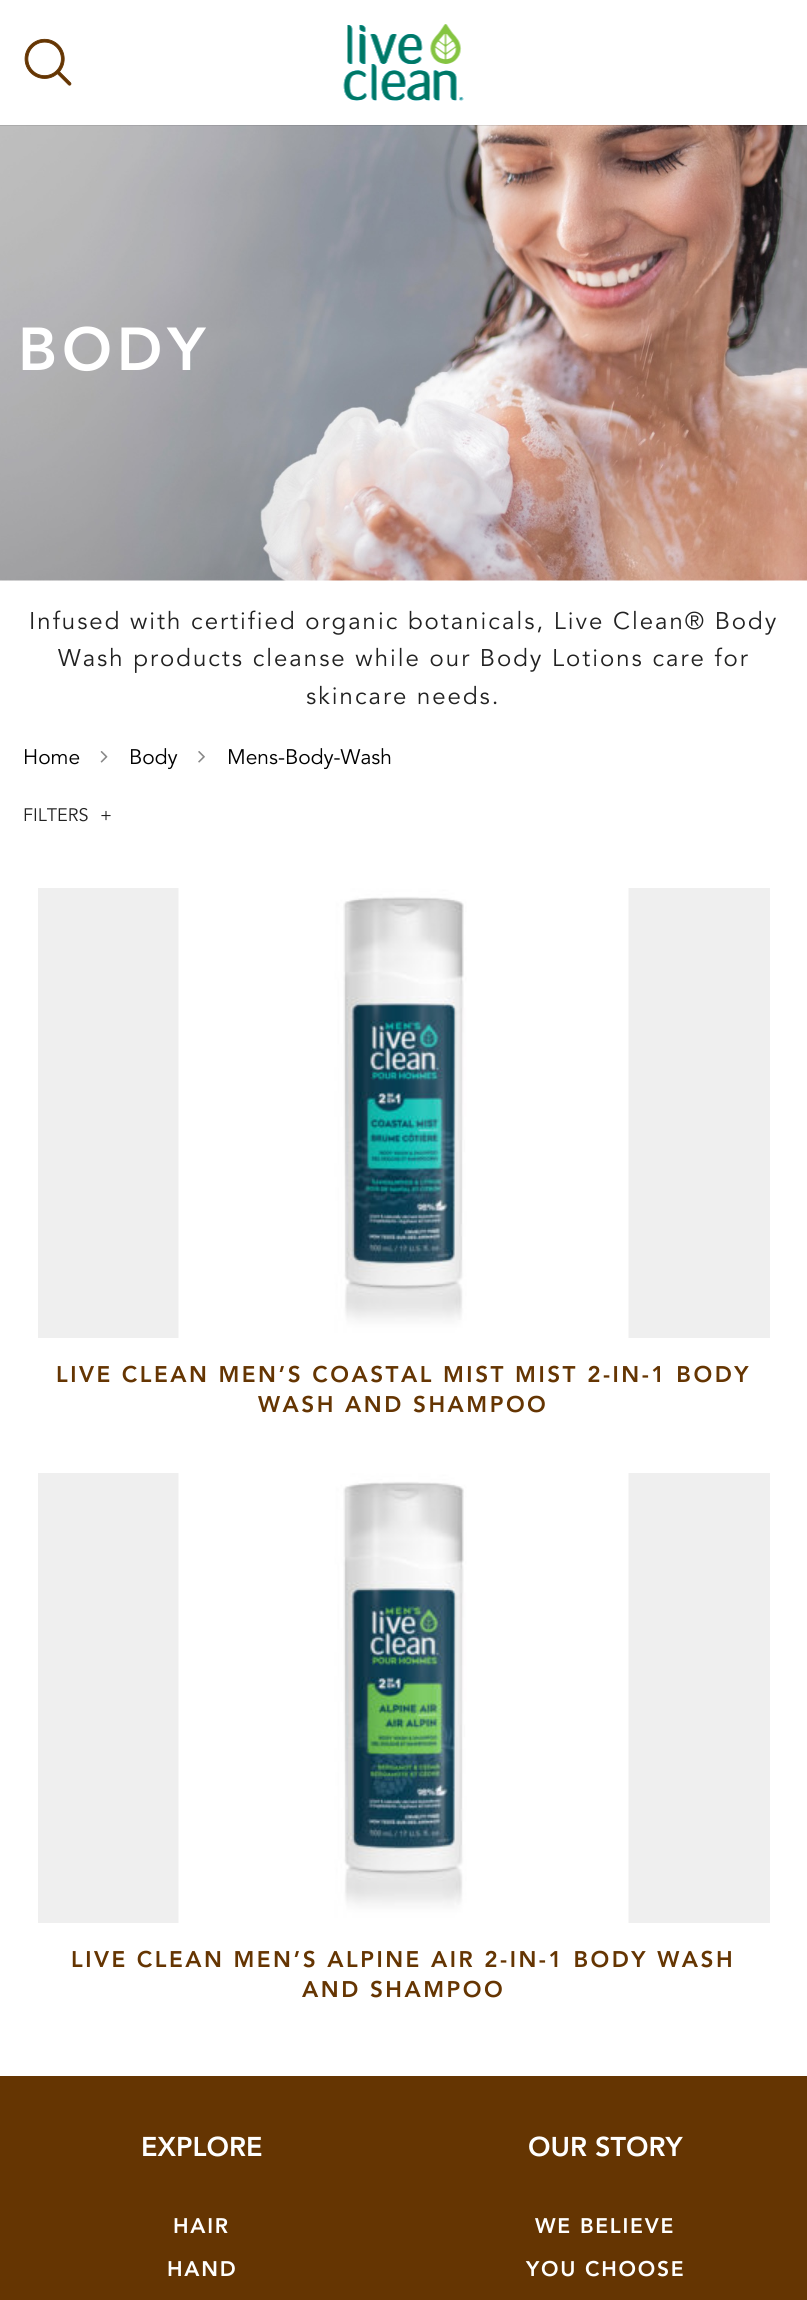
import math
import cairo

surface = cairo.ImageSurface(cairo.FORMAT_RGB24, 807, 2300)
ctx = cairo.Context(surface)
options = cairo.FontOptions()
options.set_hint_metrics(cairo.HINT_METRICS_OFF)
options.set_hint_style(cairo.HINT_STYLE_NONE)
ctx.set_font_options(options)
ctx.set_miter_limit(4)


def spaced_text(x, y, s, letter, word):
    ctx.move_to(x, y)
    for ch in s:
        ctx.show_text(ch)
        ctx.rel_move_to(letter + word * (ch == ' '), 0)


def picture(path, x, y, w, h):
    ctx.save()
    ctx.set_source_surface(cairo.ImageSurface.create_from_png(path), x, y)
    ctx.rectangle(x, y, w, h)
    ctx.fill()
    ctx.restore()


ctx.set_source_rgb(1, 1, 1)
ctx.paint()
picture("img3.png", 0, 125, 807, 456)
ctx.set_source_rgba(0, 0, 0, 0.1)
ctx.rectangle(0, 125, 807, 1)
ctx.fill()
picture("img1.png", 24, 38, 48, 48)
picture("img2.png", 343, 24, 121, 77)
ctx.select_font_face("Avenir Black")
ctx.set_font_size(60)
ctx.set_source_rgb(1, 1, 1)
spaced_text(18, 370, "BODY", 5, 0)
ctx.select_font_face("Avenir")
ctx.set_font_size(24)
ctx.set_source_rgb(0.133, 0.133, 0.133)
spaced_text(29, 629, "Infused with certified organic botanicals, Live Clean® Body", 2, 0)
spaced_text(58, 666, "Wash products cleanse while our Body Lotions care for", 2, 0)
spaced_text(306, 704, "skincare needs.", 2, 0)
ctx.set_font_size(21)
ctx.set_source_rgb(0, 0, 0)
ctx.move_to(23, 764)
ctx.show_text("Home")
picture("img4.png", 100, 751, 8, 12)
ctx.move_to(129, 764)
ctx.show_text("Body")
picture("img5.png", 198, 751, 7, 12)
ctx.move_to(227, 764)
ctx.show_text("Mens-Body-Wash")
ctx.set_font_size(18)
ctx.set_source_rgb(0.133, 0.133, 0.133)
ctx.move_to(23, 821)
ctx.show_text("FILTERS")
ctx.move_to(100, 821)
ctx.show_text("+")
ctx.set_source_rgb(0.937, 0.937, 0.937)
ctx.rectangle(38, 888, 732, 450)
ctx.fill()
picture("img6.png", 178, 888, 451, 450)
ctx.select_font_face("Avenir Black")
ctx.set_font_size(22.5)
ctx.set_source_rgb(0.396, 0.208, 0.008)
spaced_text(56, 1382, "LIVE CLEAN MEN’S COASTAL MIST MIST 2-IN-1 BODY", 2.5, 0)
spaced_text(258, 1412, "WASH AND SHAMPOO", 2.5, 0)
ctx.set_source_rgb(0.937, 0.937, 0.937)
ctx.rectangle(38, 1473, 732, 450)
ctx.fill()
picture("img7.png", 178, 1473, 451, 450)
ctx.set_source_rgb(0.396, 0.208, 0.008)
spaced_text(71, 1967, "LIVE CLEAN MEN’S ALPINE AIR 2-IN-1 BODY WASH", 2.5, 0)
spaced_text(302, 1997, "AND SHAMPOO", 2.5, 0)
ctx.rectangle(0, 2076, 807, 224)
ctx.fill()
ctx.set_font_size(27)
ctx.set_source_rgb(1, 1, 1)
ctx.move_to(141, 2156)
ctx.show_text("EXPLORE")
ctx.set_font_size(21)
spaced_text(173, 2233, "HAIR", 1.75, 0)
spaced_text(167, 2276, "HAND", 1.75, 0)
ctx.set_font_size(27)
ctx.move_to(528, 2156)
ctx.show_text("OUR STORY")
ctx.set_font_size(21)
spaced_text(535, 2233, "WE BELIEVE", 1.75, 0)
spaced_text(526, 2276, "YOU CHOOSE", 1.75, 0)
surface.write_to_png("page.png")
